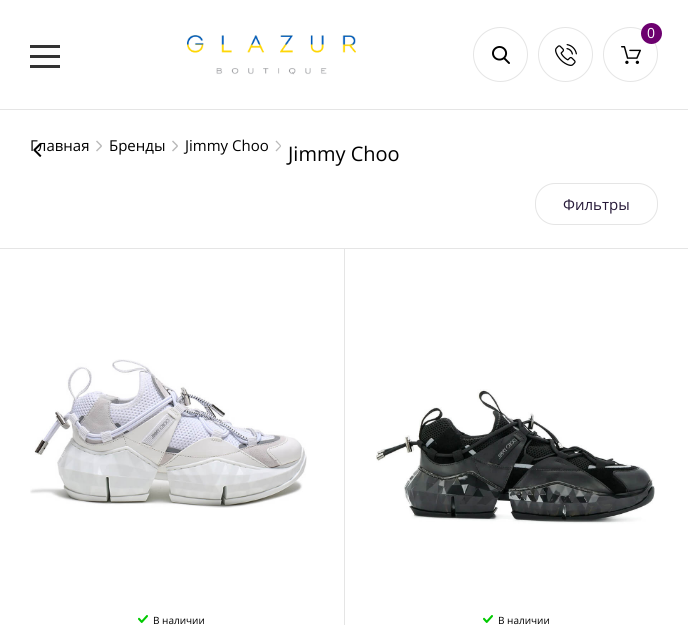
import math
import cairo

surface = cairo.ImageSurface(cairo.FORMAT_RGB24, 688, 625)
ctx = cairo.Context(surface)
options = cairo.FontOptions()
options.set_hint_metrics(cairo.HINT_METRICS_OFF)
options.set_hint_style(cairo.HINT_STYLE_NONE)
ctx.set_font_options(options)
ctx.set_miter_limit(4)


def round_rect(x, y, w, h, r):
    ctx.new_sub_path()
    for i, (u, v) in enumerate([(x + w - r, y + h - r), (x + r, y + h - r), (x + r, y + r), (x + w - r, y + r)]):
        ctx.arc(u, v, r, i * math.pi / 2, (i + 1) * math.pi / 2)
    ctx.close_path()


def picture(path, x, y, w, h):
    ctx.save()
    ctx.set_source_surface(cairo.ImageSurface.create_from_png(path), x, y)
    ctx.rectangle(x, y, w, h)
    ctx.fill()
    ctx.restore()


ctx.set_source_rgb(1, 1, 1)
ctx.paint()
ctx.set_source_rgb(0.898, 0.898, 0.898)
ctx.rectangle(0, 109, 688, 1)
ctx.fill()
ctx.arc(500.5, 54.5, 27, 0, 2 * math.pi)
ctx.set_line_width(1)
ctx.stroke()
picture("img1.png", 492, 46, 18, 18)
ctx.arc(565.5, 54.5, 27, 0, 2 * math.pi)
ctx.stroke()
picture("img2.png", 555, 44, 22, 22)
ctx.arc(630.5, 54.5, 27, 0, 2 * math.pi)
ctx.stroke()
ctx.set_source_rgb(0.427, 0, 0.435)
ctx.arc(651.5, 33.5, 10.5, 0, 2 * math.pi)
ctx.fill()
ctx.select_font_face("Open Sans")
ctx.set_font_size(14)
ctx.set_source_rgb(1, 1, 1)
ctx.move_to(647, 38)
ctx.show_text("0")
picture("img3.png", 621, 46, 20, 18)
ctx.set_source_rgb(0.2, 0.2, 0.2)
ctx.rectangle(30, 45, 30, 3)
ctx.fill()
ctx.rectangle(30, 55, 30, 3)
ctx.fill()
ctx.rectangle(30, 65, 30, 3)
ctx.fill()
picture("img4.png", 187, 35, 169, 40)
ctx.set_font_size(15)
ctx.set_source_rgb(0, 0, 0)
ctx.move_to(30, 151)
ctx.show_text("Главная")
ctx.set_source_rgb(0.725, 0.725, 0.725)
ctx.new_path()
ctx.move_to(97, 140.5)
ctx.line_to(102, 145.5)
ctx.line_to(101, 146.5)
ctx.line_to(96, 141.5)
ctx.close_path()
ctx.fill()
ctx.new_path()
ctx.move_to(96, 150.5)
ctx.line_to(101, 145.5)
ctx.line_to(102, 146.5)
ctx.line_to(97, 151.5)
ctx.close_path()
ctx.fill()
ctx.set_source_rgb(0, 0, 0)
ctx.move_to(109, 151)
ctx.show_text("Бренды")
ctx.set_source_rgb(0.725, 0.725, 0.725)
ctx.new_path()
ctx.move_to(173, 140.5)
ctx.line_to(178, 145.5)
ctx.line_to(177, 146.5)
ctx.line_to(172, 141.5)
ctx.close_path()
ctx.fill()
ctx.new_path()
ctx.move_to(172, 150.5)
ctx.line_to(177, 145.5)
ctx.line_to(178, 146.5)
ctx.line_to(173, 151.5)
ctx.close_path()
ctx.fill()
ctx.set_source_rgb(0, 0, 0)
ctx.move_to(185, 151)
ctx.show_text("Jimmy Choo")
ctx.set_source_rgb(0.725, 0.725, 0.725)
ctx.new_path()
ctx.move_to(276.5, 140.5)
ctx.line_to(281, 145.5)
ctx.line_to(280.5, 146.5)
ctx.line_to(275.5, 141.5)
ctx.close_path()
ctx.fill()
ctx.new_path()
ctx.move_to(275.5, 150.5)
ctx.line_to(280.5, 145.5)
ctx.line_to(281, 146.5)
ctx.line_to(276.5, 151.5)
ctx.close_path()
ctx.fill()
picture("img5.png", 33, 143, 9, 14)
ctx.set_font_size(20)
ctx.set_source_rgb(0, 0, 0)
ctx.move_to(288, 161)
ctx.show_text("Jimmy Choo")
round_rect(535.5, 183.5, 122, 41, 19.5)
ctx.set_source_rgb(0.898, 0.898, 0.898)
ctx.stroke()
ctx.set_font_size(15)
ctx.set_source_rgb(0.149, 0.098, 0.22)
ctx.move_to(563, 210)
ctx.show_text("Фильтры")
ctx.rectangle(-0.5, 248.5, 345, 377)
ctx.set_source_rgb(0.898, 0.898, 0.898)
ctx.stroke()
picture("img6.png", 30, 359, 277, 149)
picture("img7.png", 138, 615, 10, 8)
ctx.set_font_size(10)
ctx.set_source_rgb(0, 0, 0)
ctx.move_to(153, 624)
ctx.show_text("В наличии")
ctx.rectangle(344.5, 248.5, 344, 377)
ctx.set_source_rgb(0.898, 0.898, 0.898)
ctx.stroke()
picture("img8.png", 376, 389, 279, 135)
picture("img7.png", 483, 615, 10, 8)
ctx.set_source_rgb(0, 0, 0)
ctx.move_to(498, 624)
ctx.show_text("В наличии")
surface.write_to_png("page.png")
